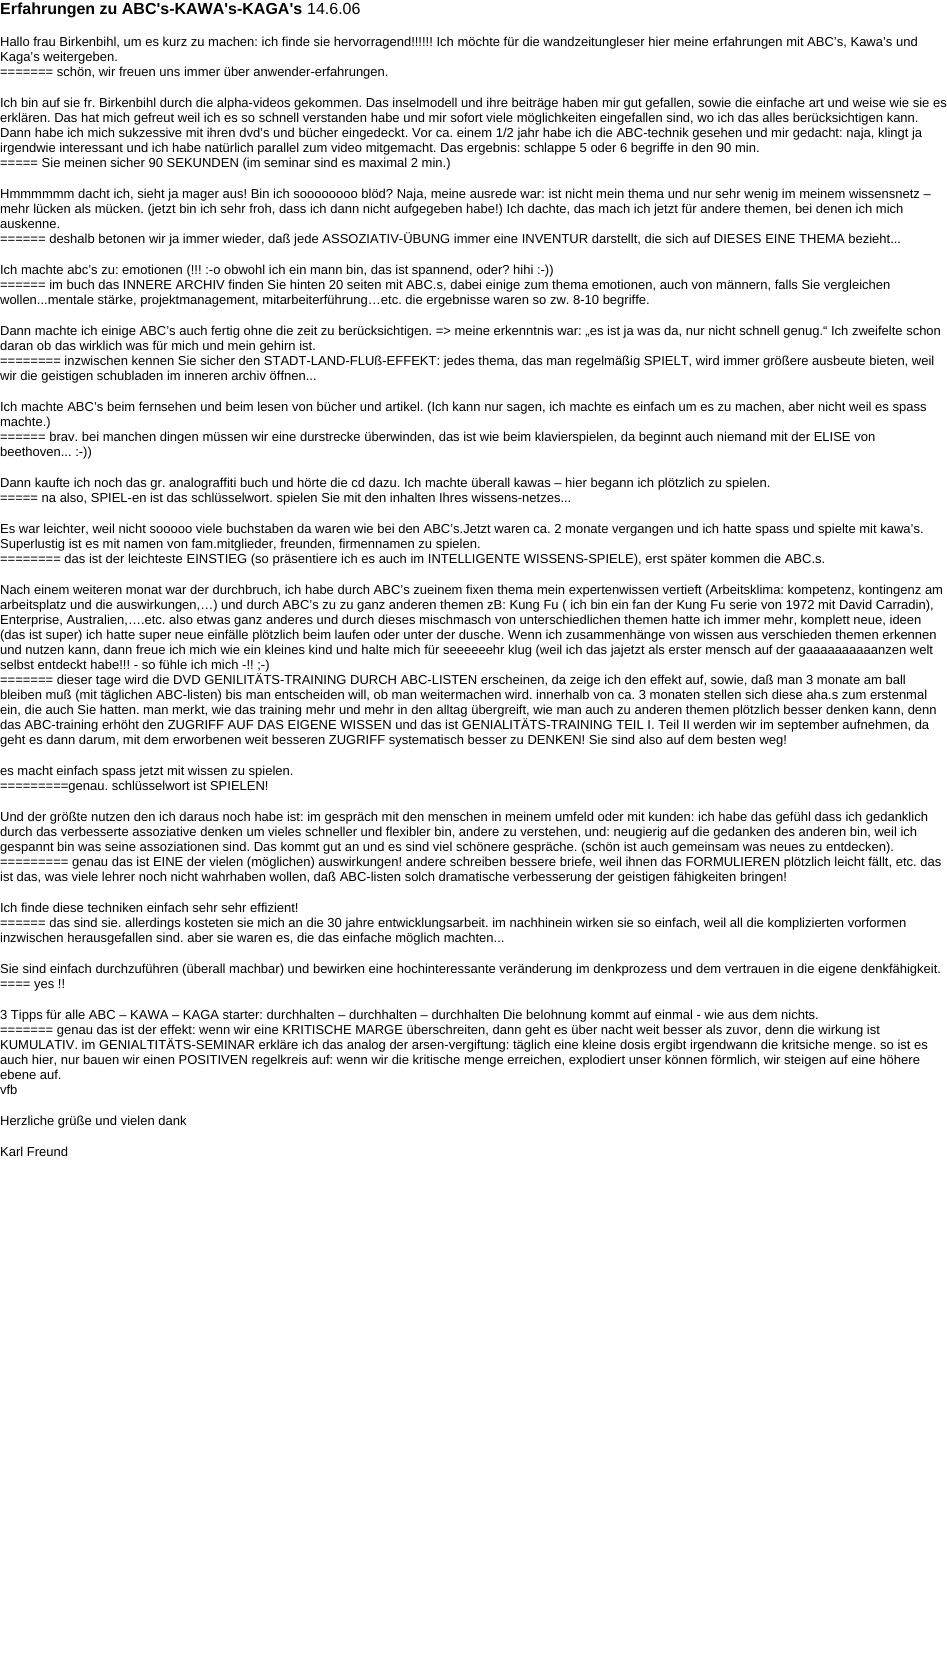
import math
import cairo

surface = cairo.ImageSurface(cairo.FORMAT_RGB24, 947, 1654)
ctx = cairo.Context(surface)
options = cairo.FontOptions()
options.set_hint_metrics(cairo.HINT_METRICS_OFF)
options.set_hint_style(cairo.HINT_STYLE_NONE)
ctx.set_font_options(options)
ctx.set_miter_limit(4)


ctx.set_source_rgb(1, 1, 1)
ctx.paint()
ctx.select_font_face("Liberation Sans", cairo.FONT_SLANT_NORMAL, cairo.FONT_WEIGHT_BOLD)
ctx.set_font_size(16)
ctx.set_source_rgb(0, 0, 0)
ctx.move_to(0, 14)
ctx.show_text("Erfahrungen zu ABC's-KAWA's-KAGA's")
ctx.select_font_face("Liberation Sans")
ctx.move_to(307, 14)
ctx.show_text("14.6.06")
ctx.set_font_size(13)
ctx.move_to(0, 46)
ctx.show_text("Hallo frau Birkenbihl, um es kurz zu machen: ich finde sie hervorragend!!!!!! Ich möchte für die wandzeitungleser hier meine erfahrungen mit ABC’s, Kawa’s und")
ctx.move_to(0, 61)
ctx.show_text("Kaga’s weitergeben.")
ctx.move_to(0, 76)
ctx.show_text("======= schön, wir freuen uns immer über anwender-erfahrungen.")
ctx.move_to(0, 107)
ctx.show_text("Ich bin auf sie fr. Birkenbihl durch die alpha-videos gekommen. Das inselmodell und ihre beiträge haben mir gut gefallen, sowie die einfache art und weise wie sie es")
ctx.move_to(0, 122)
ctx.show_text("erklären. Das hat mich gefreut weil ich es so schnell verstanden habe und mir sofort viele möglichkeiten eingefallen sind, wo ich das alles berücksichtigen kann.")
ctx.move_to(0, 137)
ctx.show_text("Dann habe ich mich sukzessive mit ihren dvd’s und bücher eingedeckt. Vor ca. einem 1/2 jahr habe ich die ABC-technik gesehen und mir gedacht: naja, klingt ja")
ctx.move_to(0, 152)
ctx.show_text("irgendwie interessant und ich habe natürlich parallel zum video mitgemacht. Das ergebnis: schlappe 5 oder 6 begriffe in den 90 min.")
ctx.move_to(0, 167)
ctx.show_text("===== Sie meinen sicher 90 SEKUNDEN (im seminar sind es maximal 2 min.)")
ctx.move_to(0, 198)
ctx.show_text("Hmmmmmm dacht ich, sieht ja mager aus! Bin ich soooooooo blöd? Naja, meine ausrede war: ist nicht mein thema und nur sehr wenig im meinem wissensnetz –")
ctx.move_to(0, 213)
ctx.show_text("mehr lücken als mücken. (jetzt bin ich sehr froh, dass ich dann nicht aufgegeben habe!) Ich dachte, das mach ich jetzt für andere themen, bei denen ich mich")
ctx.move_to(0, 228)
ctx.show_text("auskenne.")
ctx.move_to(0, 243)
ctx.show_text("====== deshalb betonen wir ja immer wieder, daß jede ASSOZIATIV-ÜBUNG immer eine INVENTUR darstellt, die sich auf DIESES EINE THEMA bezieht...")
ctx.move_to(0, 274)
ctx.show_text("Ich machte abc’s zu: emotionen (!!! :-o obwohl ich ein mann bin, das ist spannend, oder? hihi :-))")
ctx.move_to(0, 289)
ctx.show_text("====== im buch das INNERE ARCHIV finden Sie hinten 20 seiten mit ABC.s, dabei einige zum thema emotionen, auch von männern, falls Sie vergleichen")
ctx.move_to(0, 304)
ctx.show_text("wollen...mentale stärke, projektmanagement, mitarbeiterführung…etc. die ergebnisse waren so zw. 8-10 begriffe.")
ctx.move_to(0, 335)
ctx.show_text("Dann machte ich einige ABC’s auch fertig ohne die zeit zu berücksichtigen. => meine erkenntnis war: „es ist ja was da, nur nicht schnell genug.“ Ich zweifelte schon")
ctx.move_to(0, 350)
ctx.show_text("daran ob das wirklich was für mich und mein gehirn ist.")
ctx.move_to(0, 365)
ctx.show_text("======== inzwischen kennen Sie sicher den STADT-LAND-FLUß-EFFEKT: jedes thema, das man regelmäßig SPIELT, wird immer größere ausbeute bieten, weil")
ctx.move_to(0, 380)
ctx.show_text("wir die geistigen schubladen im inneren archiv öffnen...")
ctx.move_to(0, 411)
ctx.show_text("Ich machte ABC’s beim fernsehen und beim lesen von bücher und artikel. (Ich kann nur sagen, ich machte es einfach um es zu machen, aber nicht weil es spass")
ctx.move_to(0, 426)
ctx.show_text("machte.)")
ctx.move_to(0, 441)
ctx.show_text("====== brav. bei manchen dingen müssen wir eine durstrecke überwinden, das ist wie beim klavierspielen, da beginnt auch niemand mit der ELISE von")
ctx.move_to(0, 456)
ctx.show_text("beethoven... :-))")
ctx.move_to(0, 487)
ctx.show_text("Dann kaufte ich noch das gr. analograffiti buch und hörte die cd dazu. Ich machte überall kawas – hier begann ich plötzlich zu spielen.")
ctx.move_to(0, 502)
ctx.show_text("===== na also, SPIEL-en ist das schlüsselwort. spielen Sie mit den inhalten Ihres wissens-netzes...")
ctx.move_to(0, 533)
ctx.show_text("Es war leichter, weil nicht sooooo viele buchstaben da waren wie bei den ABC’s.Jetzt waren ca. 2 monate vergangen und ich hatte spass und spielte mit kawa’s.")
ctx.move_to(0, 548)
ctx.show_text("Superlustig ist es mit namen von fam.mitglieder, freunden, firmennamen zu spielen.")
ctx.move_to(0, 563)
ctx.show_text("======== das ist der leichteste EINSTIEG (so präsentiere ich es auch im INTELLIGENTE WISSENS-SPIELE), erst später kommen die ABC.s.")
ctx.move_to(0, 594)
ctx.show_text("Nach einem weiteren monat war der durchbruch, ich habe durch ABC’s zueinem fixen thema mein expertenwissen vertieft (Arbeitsklima: kompetenz, kontingenz am")
ctx.move_to(0, 609)
ctx.show_text("arbeitsplatz und die auswirkungen,…) und durch ABC’s zu zu ganz anderen themen zB: Kung Fu ( ich bin ein fan der Kung Fu serie von 1972 mit David Carradin),")
ctx.move_to(0, 624)
ctx.show_text("Enterprise, Australien,….etc. also etwas ganz anderes und durch dieses mischmasch von unterschiedlichen themen hatte ich immer mehr, komplett neue, ideen")
ctx.move_to(0, 639)
ctx.show_text("(das ist super) ich hatte super neue einfälle plötzlich beim laufen oder unter der dusche. Wenn ich zusammenhänge von wissen aus verschieden themen erkennen")
ctx.move_to(0, 654)
ctx.show_text("und nutzen kann, dann freue ich mich wie ein kleines kind und halte mich für seeeeeehr klug (weil ich das jajetzt als erster mensch auf der gaaaaaaaaaanzen welt")
ctx.move_to(0, 669)
ctx.show_text("selbst entdeckt habe!!! - so fühle ich mich -!! ;-)")
ctx.move_to(0, 684)
ctx.show_text("======= dieser tage wird die DVD GENILITÄTS-TRAINING DURCH ABC-LISTEN erscheinen, da zeige ich den effekt auf, sowie, daß man 3 monate am ball")
ctx.move_to(0, 699)
ctx.show_text("bleiben muß (mit täglichen ABC-listen) bis man entscheiden will, ob man weitermachen wird. innerhalb von ca. 3 monaten stellen sich diese aha.s zum erstenmal")
ctx.move_to(0, 714)
ctx.show_text("ein, die auch Sie hatten. man merkt, wie das training mehr und mehr in den alltag übergreift, wie man auch zu anderen themen plötzlich besser denken kann, denn")
ctx.move_to(0, 729)
ctx.show_text("das ABC-training erhöht den ZUGRIFF AUF DAS EIGENE WISSEN und das ist GENIALITÄTS-TRAINING TEIL I. Teil II werden wir im september aufnehmen, da")
ctx.move_to(0, 744)
ctx.show_text("geht es dann darum, mit dem erworbenen weit besseren ZUGRIFF systematisch besser zu DENKEN! Sie sind also auf dem besten weg!")
ctx.move_to(0, 775)
ctx.show_text("es macht einfach spass jetzt mit wissen zu spielen.")
ctx.move_to(0, 790)
ctx.show_text("=========genau. schlüsselwort ist SPIELEN!")
ctx.move_to(0, 821)
ctx.show_text("Und der größte nutzen den ich daraus noch habe ist: im gespräch mit den menschen in meinem umfeld oder mit kunden: ich habe das gefühl dass ich gedanklich")
ctx.move_to(0, 836)
ctx.show_text("durch das verbesserte assoziative denken um vieles schneller und flexibler bin, andere zu verstehen, und: neugierig auf die gedanken des anderen bin, weil ich")
ctx.move_to(0, 851)
ctx.show_text("gespannt bin was seine assoziationen sind. Das kommt gut an und es sind viel schönere gespräche. (schön ist auch gemeinsam was neues zu entdecken).")
ctx.move_to(0, 866)
ctx.show_text("========= genau das ist EINE der vielen (möglichen) auswirkungen! andere schreiben bessere briefe, weil ihnen das FORMULIEREN plötzlich leicht fällt, etc. das")
ctx.move_to(0, 881)
ctx.show_text("ist das, was viele lehrer noch nicht wahrhaben wollen, daß ABC-listen solch dramatische verbesserung der geistigen fähigkeiten bringen!")
ctx.move_to(0, 912)
ctx.show_text("Ich finde diese techniken einfach sehr sehr effizient!")
ctx.move_to(0, 927)
ctx.show_text("====== das sind sie. allerdings kosteten sie mich an die 30 jahre entwicklungsarbeit. im nachhinein wirken sie so einfach, weil all die komplizierten vorformen")
ctx.move_to(0, 942)
ctx.show_text("inzwischen herausgefallen sind. aber sie waren es, die das einfache möglich machten...")
ctx.move_to(0, 973)
ctx.show_text("Sie sind einfach durchzuführen (überall machbar) und bewirken eine hochinteressante veränderung im denkprozess und dem vertrauen in die eigene denkfähigkeit.")
ctx.move_to(0, 988)
ctx.show_text("==== yes !!")
ctx.move_to(0, 1019)
ctx.show_text("3 Tipps für alle ABC – KAWA – KAGA starter: durchhalten – durchhalten – durchhalten Die belohnung kommt auf einmal - wie aus dem nichts.")
ctx.move_to(0, 1034)
ctx.show_text("======= genau das ist der effekt: wenn wir eine KRITISCHE MARGE überschreiten, dann geht es über nacht weit besser als zuvor, denn die wirkung ist")
ctx.move_to(0, 1049)
ctx.show_text("KUMULATIV. im GENIALTITÄTS-SEMINAR erkläre ich das analog der arsen-vergiftung: täglich eine kleine dosis ergibt irgendwann die kritsiche menge. so ist es")
ctx.move_to(0, 1064)
ctx.show_text("auch hier, nur bauen wir einen POSITIVEN regelkreis auf: wenn wir die kritische menge erreichen, explodiert unser können förmlich, wir steigen auf eine höhere")
ctx.move_to(0, 1079)
ctx.show_text("ebene auf.")
ctx.move_to(0, 1094)
ctx.show_text("vfb")
ctx.move_to(0, 1125)
ctx.show_text("Herzliche grüße und vielen dank")
ctx.move_to(0, 1156)
ctx.show_text("Karl Freund")
surface.write_to_png("page.png")
